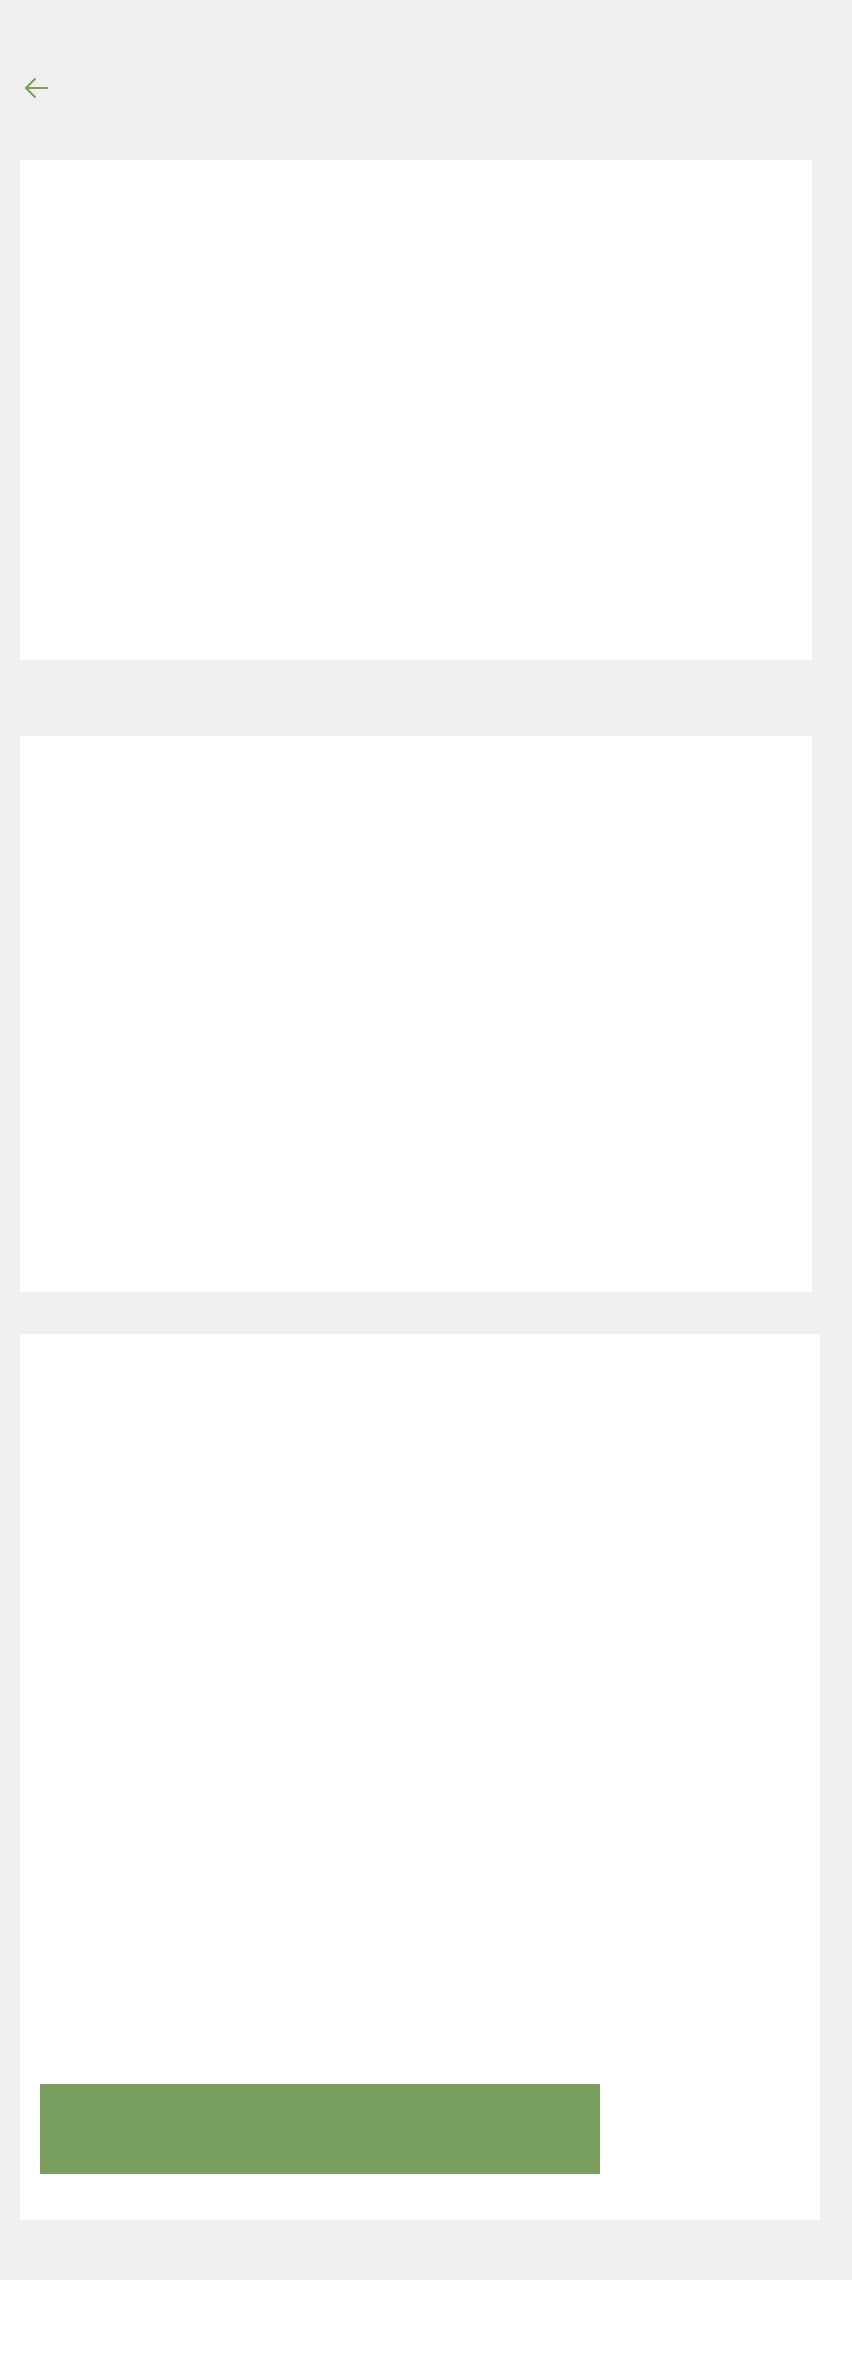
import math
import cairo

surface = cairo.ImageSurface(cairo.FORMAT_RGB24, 852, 2362)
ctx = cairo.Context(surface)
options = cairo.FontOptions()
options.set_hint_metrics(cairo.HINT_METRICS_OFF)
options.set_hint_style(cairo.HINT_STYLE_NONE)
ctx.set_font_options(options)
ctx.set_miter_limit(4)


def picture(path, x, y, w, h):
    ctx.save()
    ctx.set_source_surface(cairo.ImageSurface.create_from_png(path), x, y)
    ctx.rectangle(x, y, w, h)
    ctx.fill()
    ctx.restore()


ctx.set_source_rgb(1, 1, 1)
ctx.paint()
ctx.set_source_rgb(0.941, 0.941, 0.941)
ctx.rectangle(0, 0, 852, 2280)
ctx.fill()
picture("img1.png", 25, 78, 23, 20)
ctx.set_source_rgb(1, 1, 1)
ctx.rectangle(20, 160, 792, 500)
ctx.fill()
ctx.rectangle(20, 736, 792, 556)
ctx.fill()
ctx.rectangle(20, 1334, 800, 886)
ctx.fill()
ctx.set_source_rgb(0.475, 0.624, 0.369)
ctx.rectangle(40, 2084, 560, 90)
ctx.fill()
surface.write_to_png("page.png")
